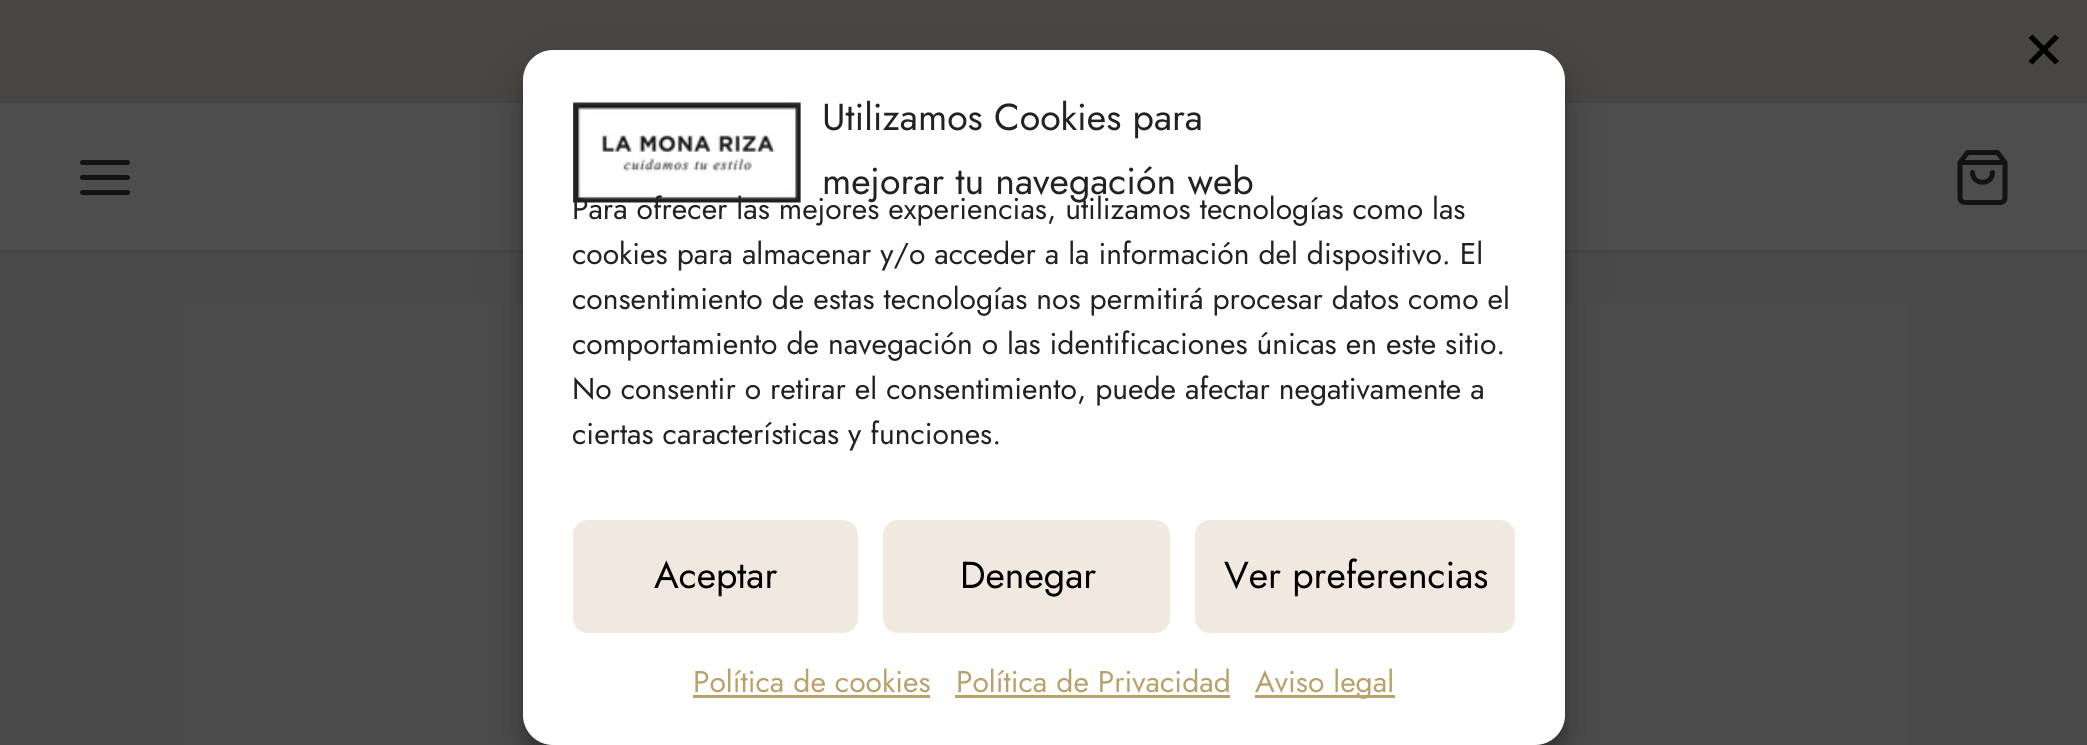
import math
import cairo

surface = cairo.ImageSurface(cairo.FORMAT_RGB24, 2087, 745)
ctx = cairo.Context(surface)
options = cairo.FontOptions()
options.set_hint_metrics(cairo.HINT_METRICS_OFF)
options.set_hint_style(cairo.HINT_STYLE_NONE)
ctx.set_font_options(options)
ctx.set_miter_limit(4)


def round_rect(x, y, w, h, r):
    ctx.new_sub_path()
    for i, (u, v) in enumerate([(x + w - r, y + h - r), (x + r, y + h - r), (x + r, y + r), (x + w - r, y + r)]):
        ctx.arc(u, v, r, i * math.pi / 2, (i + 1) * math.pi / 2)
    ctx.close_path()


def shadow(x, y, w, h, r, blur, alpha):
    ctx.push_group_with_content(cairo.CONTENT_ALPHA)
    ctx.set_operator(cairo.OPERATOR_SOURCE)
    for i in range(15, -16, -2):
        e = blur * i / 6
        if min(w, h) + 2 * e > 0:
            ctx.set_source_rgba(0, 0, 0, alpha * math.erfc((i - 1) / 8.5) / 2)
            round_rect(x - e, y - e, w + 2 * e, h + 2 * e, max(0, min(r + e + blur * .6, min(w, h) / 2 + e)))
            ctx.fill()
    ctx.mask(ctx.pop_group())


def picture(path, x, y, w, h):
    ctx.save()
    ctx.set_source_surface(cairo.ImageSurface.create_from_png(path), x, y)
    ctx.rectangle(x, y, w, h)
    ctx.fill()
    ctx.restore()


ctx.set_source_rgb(0.29, 0.29, 0.29)
ctx.paint()
ctx.set_source_rgb(0.282, 0.275, 0.263)
ctx.rectangle(0, 0, 2087, 103)
ctx.fill()
ctx.set_source_rgb(0, 0, 0)
ctx.new_path()
ctx.move_to(2032.5, 34.5)
ctx.line_to(2059, 61)
ctx.line_to(2055, 64.5)
ctx.line_to(2028.5, 38)
ctx.close_path()
ctx.fill()
ctx.new_path()
ctx.move_to(2028.5, 61)
ctx.line_to(2055, 34.5)
ctx.line_to(2059, 38)
ctx.line_to(2032.5, 64.5)
ctx.close_path()
ctx.fill()
ctx.set_source_rgb(0.302, 0.302, 0.302)
ctx.rectangle(0, 103, 2087, 147)
ctx.fill()
ctx.set_source_rgb(0.271, 0.271, 0.271)
ctx.rectangle(0, 250, 2087, 3)
ctx.fill()
picture("img2.png", 183, 303, 1724, 442)
ctx.set_source_rgb(0, 0, 0)
shadow(523, 65, 1042, 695, 30, 7.5, 0.23)
shadow(523, 75, 1042, 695, 30, 25, 0.19)
ctx.set_source_rgb(1, 1, 1)
round_rect(523, 50, 1042, 695, 30)
ctx.fill()
picture("img1.png", 573, 102, 228, 101)
ctx.select_font_face("Jost")
ctx.set_font_size(37.5)
ctx.set_source_rgb(0.133, 0.133, 0.133)
ctx.move_to(822, 130)
ctx.show_text("Utilizamos Cookies para")
ctx.move_to(822, 194)
ctx.show_text("mejorar tu navegación web")
ctx.set_font_size(30)
ctx.move_to(572, 219)
ctx.show_text("Para ofrecer las mejores experiencias, utilizamos tecnologías como las")
ctx.move_to(572, 264)
ctx.show_text("cookies para almacenar y/o acceder a la información del dispositivo. El")
ctx.move_to(572, 309)
ctx.show_text("consentimiento de estas tecnologías nos permitirá procesar datos como el")
ctx.move_to(572, 354)
ctx.show_text("comportamiento de navegación o las identificaciones únicas en este sitio.")
ctx.move_to(572, 399)
ctx.show_text("No consentir o retirar el consentimiento, puede afectar negativamente a")
ctx.move_to(572, 444)
ctx.show_text("ciertas características y funciones.")
ctx.set_source_rgb(0.945, 0.91, 0.875)
round_rect(574.5, 521.5, 282, 110, 13.5)
ctx.fill_preserve()
ctx.set_line_width(3)
ctx.stroke()
ctx.set_font_size(37.5)
ctx.set_source_rgb(0, 0, 0)
ctx.move_to(654, 588)
ctx.show_text("Aceptar")
ctx.set_source_rgb(0.945, 0.91, 0.875)
round_rect(884.5, 521.5, 284, 110, 13.5)
ctx.fill_preserve()
ctx.stroke()
ctx.set_source_rgb(0, 0, 0)
ctx.move_to(960, 588)
ctx.show_text("Denegar")
ctx.set_source_rgb(0.945, 0.91, 0.875)
round_rect(1196.5, 521.5, 317, 110, 13.5)
ctx.fill_preserve()
ctx.stroke()
ctx.set_source_rgb(0, 0, 0)
ctx.move_to(1224, 588)
ctx.show_text("Ver preferencias")
ctx.set_font_size(30)
ctx.set_source_rgb(0.725, 0.631, 0.42)
ctx.move_to(693, 692)
ctx.show_text("Política de cookies")
ctx.rectangle(693, 695, 237, 3)
ctx.fill()
ctx.move_to(956, 692)
ctx.show_text("Política de Privacidad")
ctx.rectangle(955, 695, 275, 3)
ctx.fill()
ctx.rectangle(1255, 695, 140, 3)
ctx.fill()
ctx.move_to(1255, 692)
ctx.show_text("Aviso legal")
ctx.new_path()
ctx.move_to(82.5, 177.5)
ctx.line_to(127.5, 177.5)
ctx.move_to(82.5, 162.5)
ctx.line_to(127.5, 162.5)
ctx.move_to(82.5, 192.5)
ctx.line_to(127.5, 192.5)
ctx.set_source_rgb(0.078, 0.078, 0.078)
ctx.set_line_width(5)
ctx.set_line_cap(cairo.LINE_CAP_ROUND)
ctx.set_line_join(cairo.LINE_JOIN_ROUND)
ctx.stroke()
ctx.new_path()
ctx.move_to(1967.5, 152.5)
ctx.line_to(1960, 162.5)
ctx.line_to(1960, 197.5)
ctx.curve_to(1960, 200.5, 1962, 202.5, 1965, 202.5)
ctx.line_to(2000, 202.5)
ctx.curve_to(2003, 202.5, 2005, 200.5, 2005, 197.5)
ctx.line_to(2005, 162.5)
ctx.line_to(1997.5, 152.5)
ctx.close_path()
ctx.move_to(1960, 162.5)
ctx.line_to(2005, 162.5)
ctx.move_to(1992.5, 172.5)
ctx.curve_to(1992.5, 185.5, 1972.5, 185.5, 1972.5, 172.5)
ctx.stroke()
surface.write_to_png("page.png")
